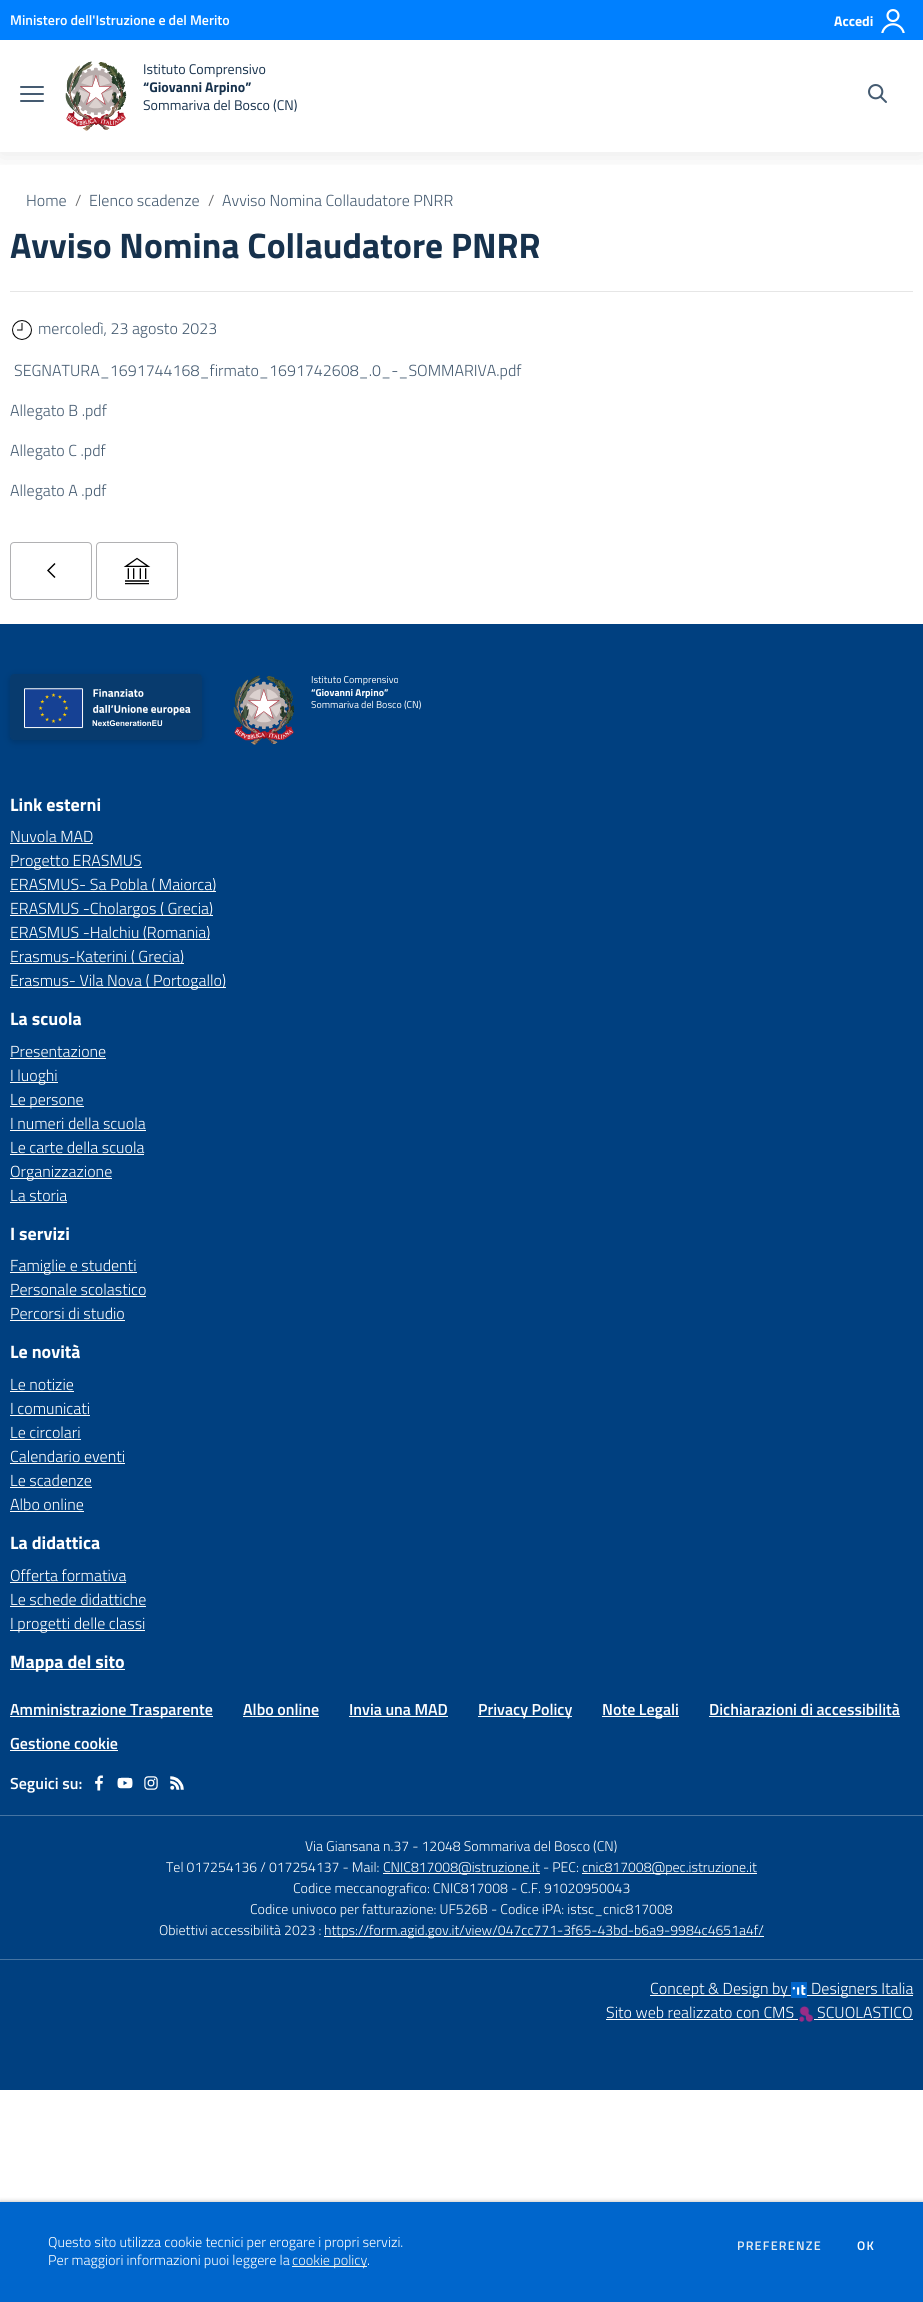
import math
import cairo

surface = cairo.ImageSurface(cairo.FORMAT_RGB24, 923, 2302)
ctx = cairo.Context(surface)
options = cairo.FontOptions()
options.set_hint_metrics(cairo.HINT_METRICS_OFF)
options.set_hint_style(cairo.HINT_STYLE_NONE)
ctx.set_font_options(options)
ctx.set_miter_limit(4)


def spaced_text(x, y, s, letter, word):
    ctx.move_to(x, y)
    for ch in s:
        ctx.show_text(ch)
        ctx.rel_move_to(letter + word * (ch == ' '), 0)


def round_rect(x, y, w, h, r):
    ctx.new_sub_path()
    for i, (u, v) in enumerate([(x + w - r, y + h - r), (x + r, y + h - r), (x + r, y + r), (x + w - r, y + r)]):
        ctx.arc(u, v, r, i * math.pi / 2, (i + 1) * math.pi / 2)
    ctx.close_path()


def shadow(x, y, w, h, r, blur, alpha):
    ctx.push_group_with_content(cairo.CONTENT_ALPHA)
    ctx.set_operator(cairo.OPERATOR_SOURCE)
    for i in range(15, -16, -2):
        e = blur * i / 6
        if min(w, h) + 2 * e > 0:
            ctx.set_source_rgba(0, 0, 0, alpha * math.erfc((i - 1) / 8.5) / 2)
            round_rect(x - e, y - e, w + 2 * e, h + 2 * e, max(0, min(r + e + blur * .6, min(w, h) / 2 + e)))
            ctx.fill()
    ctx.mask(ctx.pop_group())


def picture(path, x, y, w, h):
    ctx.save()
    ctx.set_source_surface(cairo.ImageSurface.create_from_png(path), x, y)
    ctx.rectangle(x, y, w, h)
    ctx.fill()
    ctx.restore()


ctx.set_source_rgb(1, 1, 1)
ctx.paint()
ctx.save()
ctx.rectangle(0, 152, 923, 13)
ctx.clip()
ctx.set_source_rgb(0, 0, 0)
shadow(0, 2, 923, 152, 0, 12.5, 0.1)
ctx.restore()
ctx.set_source_rgb(0, 0.502, 1)
ctx.rectangle(0, 0, 923, 40)
ctx.fill()
ctx.select_font_face("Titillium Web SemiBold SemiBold")
ctx.set_font_size(14)
ctx.set_source_rgb(1, 1, 1)
ctx.move_to(10, 25)
ctx.show_text("Ministero dell'Istruzione e del Merito")
ctx.select_font_face("Titillium Web", cairo.FONT_SLANT_NORMAL, cairo.FONT_WEIGHT_BOLD)
ctx.move_to(834, 26)
ctx.show_text("Accedi")
picture("img1.png", 881, 9, 24, 24)
ctx.set_source_rgb(0.271, 0.357, 0.443)
round_rect(20, 93, 24, 2, 1)
ctx.fill()
round_rect(20, 86, 24, 2, 1)
ctx.fill()
round_rect(20, 100, 24, 2, 1)
ctx.fill()
picture("img2.png", 65, 61, 62, 70)
ctx.select_font_face("Titillium Web")
ctx.set_source_rgb(0.09, 0.196, 0.302)
ctx.move_to(143, 74)
ctx.show_text("Istituto Comprensivo")
ctx.select_font_face("Titillium Web", cairo.FONT_SLANT_NORMAL, cairo.FONT_WEIGHT_BOLD)
ctx.move_to(143, 92)
ctx.show_text("“Giovanni Arpino”")
ctx.select_font_face("Titillium Web")
ctx.move_to(143, 110)
ctx.show_text("Sommariva del Bosco (CN)")
picture("img3.png", 868, 84, 19, 19)
ctx.select_font_face("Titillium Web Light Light")
ctx.set_font_size(16)
ctx.set_source_rgb(0.271, 0.357, 0.443)
ctx.move_to(26, 206)
ctx.show_text("Home")
ctx.set_source_rgb(0.396, 0.396, 0.4)
ctx.move_to(75, 206)
ctx.show_text("/")
ctx.set_source_rgb(0.271, 0.357, 0.443)
ctx.move_to(89, 206)
ctx.show_text("Elenco scadenze")
ctx.set_source_rgb(0.396, 0.396, 0.4)
ctx.move_to(208, 206)
ctx.show_text("/")
ctx.set_source_rgb(0.271, 0.357, 0.443)
ctx.move_to(222, 206)
ctx.show_text("Avviso Nomina Collaudatore PNRR")
ctx.select_font_face("Titillium Web", cairo.FONT_SLANT_NORMAL, cairo.FONT_WEIGHT_BOLD)
ctx.set_font_size(35.5)
ctx.set_source_rgb(0.09, 0.196, 0.302)
ctx.move_to(10, 258)
ctx.show_text("Avviso Nomina Collaudatore PNRR")
ctx.set_source_rgb(0.902, 0.902, 0.902)
ctx.rectangle(10, 291, 903, 1)
ctx.fill()
picture("img4.png", 12, 320, 20, 20)
ctx.select_font_face("Titillium Web Light Light")
ctx.set_font_size(16)
ctx.set_source_rgb(0.271, 0.357, 0.443)
ctx.move_to(38, 334)
ctx.show_text("mercoledì, 23 agosto 2023")
ctx.move_to(14, 376)
ctx.show_text("SEGNATURA_1691744168_firmato_1691742608_.0_-_SOMMARIVA.pdf")
ctx.move_to(10, 416)
ctx.show_text("Allegato B .pdf")
ctx.move_to(10, 456)
ctx.show_text("Allegato C .pdf")
ctx.move_to(10, 496)
ctx.show_text("Allegato A .pdf")
round_rect(10.5, 542.5, 81, 57, 3.5)
ctx.set_source_rgb(0.694, 0.694, 0.702)
ctx.set_line_width(1)
ctx.stroke()
picture("img5.png", 47, 563, 9, 15)
round_rect(96.5, 542.5, 81, 57, 3.5)
ctx.stroke()
picture("img6.png", 123, 557, 28, 28)
ctx.set_source_rgb(0, 0.251, 0.502)
ctx.rectangle(0, 624, 923, 1466)
ctx.fill()
ctx.save()
ctx.set_fill_rule(cairo.FILL_RULE_EVEN_ODD)
ctx.new_path()
ctx.move_to(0, 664)
ctx.line_to(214, 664)
ctx.line_to(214, 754)
ctx.line_to(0, 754)
ctx.close_path()
ctx.move_to(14, 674)
ctx.line_to(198, 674)
ctx.curve_to(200, 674, 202, 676, 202, 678)
ctx.line_to(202, 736)
ctx.curve_to(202, 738, 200, 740, 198, 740)
ctx.line_to(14, 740)
ctx.curve_to(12, 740, 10, 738, 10, 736)
ctx.line_to(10, 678)
ctx.curve_to(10, 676, 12, 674, 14, 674)
ctx.close_path()
ctx.clip()
ctx.set_source_rgb(0, 0, 0)
shadow(10, 676, 192, 66, 4, 3.5, 0.17)
ctx.restore()
ctx.set_source_rgba(0.157, 0.157, 0.157, 0.2)
round_rect(10, 674, 192, 66, 4)
ctx.fill()
picture("img7.png", 24, 688, 167, 41)
picture("img8.png", 233, 675, 62, 70)
ctx.select_font_face("Titillium Web")
ctx.set_font_size(10)
ctx.set_source_rgb(1, 1, 1)
ctx.move_to(311, 683)
ctx.show_text("Istituto Comprensivo")
ctx.select_font_face("Titillium Web", cairo.FONT_SLANT_NORMAL, cairo.FONT_WEIGHT_BOLD)
ctx.move_to(311, 696)
ctx.show_text("“Giovanni Arpino”")
ctx.select_font_face("Titillium Web")
ctx.move_to(311, 708)
ctx.show_text("Sommariva del Bosco (CN)")
ctx.select_font_face("Titillium Web", cairo.FONT_SLANT_NORMAL, cairo.FONT_WEIGHT_BOLD)
ctx.set_font_size(18)
ctx.move_to(10, 811)
ctx.show_text("Link esterni")
ctx.select_font_face("Titillium Web Light Light")
ctx.set_font_size(16)
ctx.move_to(10, 842)
ctx.show_text("Nuvola MAD")
ctx.rectangle(10, 843, 83, 1)
ctx.fill()
ctx.rectangle(10, 867, 132, 1)
ctx.fill()
ctx.move_to(10, 866)
ctx.show_text("Progetto ERASMUS")
ctx.rectangle(10, 891, 206, 1)
ctx.fill()
ctx.move_to(10, 890)
ctx.show_text("ERASMUS- Sa Pobla ( Maiorca)")
ctx.rectangle(10, 915, 203, 1)
ctx.fill()
ctx.move_to(10, 914)
ctx.show_text("ERASMUS -Cholargos ( Grecia)")
ctx.rectangle(10, 939, 200, 1)
ctx.fill()
ctx.move_to(10, 938)
ctx.show_text("ERASMUS -Halchiu (Romania)")
ctx.rectangle(10, 963, 174, 1)
ctx.fill()
ctx.move_to(10, 962)
ctx.show_text("Erasmus-Katerini ( Grecia)")
ctx.rectangle(10, 987, 216, 1)
ctx.fill()
ctx.move_to(10, 986)
ctx.show_text("Erasmus- Vila Nova ( Portogallo)")
ctx.select_font_face("Titillium Web", cairo.FONT_SLANT_NORMAL, cairo.FONT_WEIGHT_BOLD)
ctx.set_font_size(18)
ctx.move_to(10, 1025)
ctx.show_text("La scuola")
ctx.select_font_face("Titillium Web Light Light")
ctx.set_font_size(16)
ctx.move_to(10, 1057)
ctx.show_text("Presentazione")
ctx.rectangle(10, 1058, 96, 1)
ctx.fill()
ctx.rectangle(10, 1082, 48, 1)
ctx.fill()
ctx.move_to(10, 1081)
ctx.show_text("I luoghi")
ctx.rectangle(10, 1106, 74, 1)
ctx.fill()
ctx.move_to(10, 1105)
ctx.show_text("Le persone")
ctx.move_to(10, 1129)
ctx.show_text("I numeri della scuola")
ctx.rectangle(10, 1130, 136, 1)
ctx.fill()
ctx.move_to(10, 1153)
ctx.show_text("Le carte della scuola")
ctx.rectangle(10, 1154, 134, 1)
ctx.fill()
ctx.rectangle(10, 1178, 102, 1)
ctx.fill()
ctx.move_to(10, 1177)
ctx.show_text("Organizzazione")
ctx.move_to(10, 1201)
ctx.show_text("La storia")
ctx.rectangle(10, 1202, 57, 1)
ctx.fill()
ctx.select_font_face("Titillium Web", cairo.FONT_SLANT_NORMAL, cairo.FONT_WEIGHT_BOLD)
ctx.set_font_size(18)
ctx.move_to(10, 1240)
ctx.show_text("I servizi")
ctx.rectangle(10, 1272, 127, 1)
ctx.fill()
ctx.select_font_face("Titillium Web Light Light")
ctx.set_font_size(16)
ctx.move_to(10, 1271)
ctx.show_text("Famiglie e studenti")
ctx.move_to(10, 1295)
ctx.show_text("Personale scolastico")
ctx.rectangle(10, 1296, 136, 1)
ctx.fill()
ctx.move_to(10, 1319)
ctx.show_text("Percorsi di studio")
ctx.rectangle(10, 1320, 115, 1)
ctx.fill()
ctx.select_font_face("Titillium Web", cairo.FONT_SLANT_NORMAL, cairo.FONT_WEIGHT_BOLD)
ctx.set_font_size(18)
ctx.move_to(10, 1358)
ctx.show_text("Le novità")
ctx.select_font_face("Titillium Web Light Light")
ctx.set_font_size(16)
ctx.move_to(10, 1390)
ctx.show_text("Le notizie")
ctx.rectangle(10, 1391, 64, 1)
ctx.fill()
ctx.move_to(10, 1414)
ctx.show_text("I comunicati")
ctx.rectangle(10, 1415, 80, 1)
ctx.fill()
ctx.move_to(10, 1438)
ctx.show_text("Le circolari")
ctx.rectangle(10, 1439, 71, 1)
ctx.fill()
ctx.move_to(10, 1462)
ctx.show_text("Calendario eventi")
ctx.rectangle(10, 1463, 115, 1)
ctx.fill()
ctx.move_to(10, 1486)
ctx.show_text("Le scadenze")
ctx.rectangle(10, 1487, 82, 1)
ctx.fill()
ctx.move_to(10, 1510)
ctx.show_text("Albo online")
ctx.rectangle(10, 1511, 74, 1)
ctx.fill()
ctx.select_font_face("Titillium Web", cairo.FONT_SLANT_NORMAL, cairo.FONT_WEIGHT_BOLD)
ctx.set_font_size(18)
ctx.move_to(10, 1549)
ctx.show_text("La didattica")
ctx.select_font_face("Titillium Web Light Light")
ctx.set_font_size(16)
ctx.move_to(10, 1581)
ctx.show_text("Offerta formativa")
ctx.rectangle(10, 1582, 116, 1)
ctx.fill()
ctx.move_to(10, 1605)
ctx.show_text("Le schede didattiche")
ctx.rectangle(10, 1606, 136, 1)
ctx.fill()
ctx.rectangle(10, 1630, 135, 1)
ctx.fill()
ctx.move_to(10, 1629)
ctx.show_text("I progetti delle classi")
ctx.rectangle(10, 1669, 115, 1)
ctx.fill()
ctx.select_font_face("Titillium Web", cairo.FONT_SLANT_NORMAL, cairo.FONT_WEIGHT_BOLD)
ctx.set_font_size(18)
ctx.move_to(10, 1668)
ctx.show_text("Mappa del sito")
ctx.rectangle(10, 1716, 203, 1)
ctx.fill()
ctx.select_font_face("Titillium Web SemiBold SemiBold")
ctx.set_font_size(16)
ctx.move_to(10, 1715)
ctx.show_text("Amministrazione Trasparente")
ctx.move_to(243, 1715)
ctx.show_text("Albo online")
ctx.rectangle(243, 1716, 76, 1)
ctx.fill()
ctx.move_to(349, 1715)
ctx.show_text("Invia una MAD")
ctx.rectangle(349, 1716, 99, 1)
ctx.fill()
ctx.rectangle(478, 1716, 94, 1)
ctx.fill()
ctx.move_to(478, 1715)
ctx.show_text("Privacy Policy")
ctx.rectangle(602, 1716, 77, 1)
ctx.fill()
ctx.move_to(602, 1715)
ctx.show_text("Note Legali")
ctx.move_to(709, 1715)
ctx.show_text("Dichiarazioni di accessibilità")
ctx.rectangle(709, 1716, 191, 1)
ctx.fill()
ctx.move_to(10, 1749)
ctx.show_text("Gestione cookie")
ctx.rectangle(10, 1750, 108, 1)
ctx.fill()
ctx.move_to(10, 1789)
ctx.show_text("Seguici su:")
picture("img9.png", 95, 1775, 8, 16)
picture("img10.png", 117, 1777, 16, 12)
picture("img11.png", 144, 1776, 14, 14)
picture("img12.png", 170, 1776, 14, 14)
ctx.set_source_rgb(0.271, 0.455, 0.635)
ctx.rectangle(0, 1815, 923, 1)
ctx.fill()
ctx.select_font_face("Titillium Web Light Light")
ctx.set_font_size(14)
ctx.set_source_rgb(1, 1, 1)
ctx.move_to(305, 1851)
ctx.show_text("Via Giansana n.37 - 12048 Sommariva del Bosco (CN)")
ctx.move_to(166, 1872)
ctx.show_text("Tel 017254136 / 017254137 - Mail:")
ctx.rectangle(383, 1873, 157, 1)
ctx.fill()
ctx.move_to(383, 1872)
ctx.show_text("CNIC817008@istruzione.it - PEC:")
ctx.rectangle(582, 1873, 175, 1)
ctx.fill()
ctx.move_to(582, 1872)
ctx.show_text("cnic817008@pec.istruzione.it")
ctx.move_to(293, 1893)
ctx.show_text("Codice meccanografico: CNIC817008 - C.F. 91020950043")
ctx.move_to(250, 1914)
ctx.show_text("Codice univoco per fatturazione: UF526B - Codice iPA: istsc_cnic817008")
ctx.move_to(159, 1935)
ctx.show_text("Obiettivi accessibilità 2023 :")
ctx.rectangle(324, 1936, 440, 1)
ctx.fill()
ctx.move_to(324, 1935)
ctx.show_text("https://form.agid.gov.it/view/047cc771-3f65-43bd-b6a9-9984c4651a4f/")
ctx.set_source_rgb(0.271, 0.455, 0.635)
ctx.rectangle(0, 1959, 923, 1)
ctx.fill()
ctx.set_source_rgb(1, 1, 1)
ctx.rectangle(650, 1995, 141, 1)
ctx.fill()
ctx.set_font_size(16)
ctx.move_to(650, 1994)
ctx.show_text("Concept & Design by")
ctx.set_source_rgb(0, 0.4, 0.8)
ctx.rectangle(791, 1982, 16, 16)
ctx.fill()
picture("img13.png", 792, 1985, 14, 10)
ctx.set_source_rgb(1, 1, 1)
ctx.rectangle(807, 1995, 106, 1)
ctx.fill()
ctx.move_to(811, 1994)
ctx.show_text("Designers Italia")
ctx.move_to(606, 2018)
ctx.show_text("Sito web realizzato con CMS")
ctx.rectangle(606, 2019, 192, 1)
ctx.fill()
picture("img14.png", 798, 2006, 16, 16)
ctx.move_to(817, 2018)
ctx.show_text("SCUOLASTICO")
ctx.rectangle(814, 2019, 99, 1)
ctx.fill()
ctx.set_source_rgb(0, 0, 0)
shadow(0, 2202, 923, 100, 0, 2.5, 0.3)
ctx.set_source_rgb(0, 0.4, 0.8)
ctx.rectangle(0, 2202, 923, 100)
ctx.fill()
ctx.set_font_size(14.25)
ctx.set_source_rgb(1, 1, 1)
ctx.move_to(48, 2247)
ctx.show_text("Questo sito utilizza cookie tecnici per erogare i propri servizi.")
ctx.move_to(48, 2265)
ctx.show_text("Per maggiori informazioni puoi leggere la")
ctx.set_source_rgb(0.961, 0.961, 0.941)
ctx.rectangle(292, 2266, 75, 1)
ctx.fill()
ctx.move_to(292, 2265)
ctx.show_text("cookie policy")
ctx.set_source_rgb(1, 1, 1)
ctx.move_to(367, 2265)
ctx.show_text(".")
ctx.select_font_face("Titillium Web SemiBold SemiBold")
ctx.set_font_size(12.5)
ctx.set_source_rgb(0.902, 0.925, 0.949)
spaced_text(737, 2250, "PREFERENZE", 1.25, 0)
ctx.set_source_rgb(1, 1, 1)
spaced_text(857, 2250, "OK", 1.25, 0)
surface.write_to_png("page.png")
